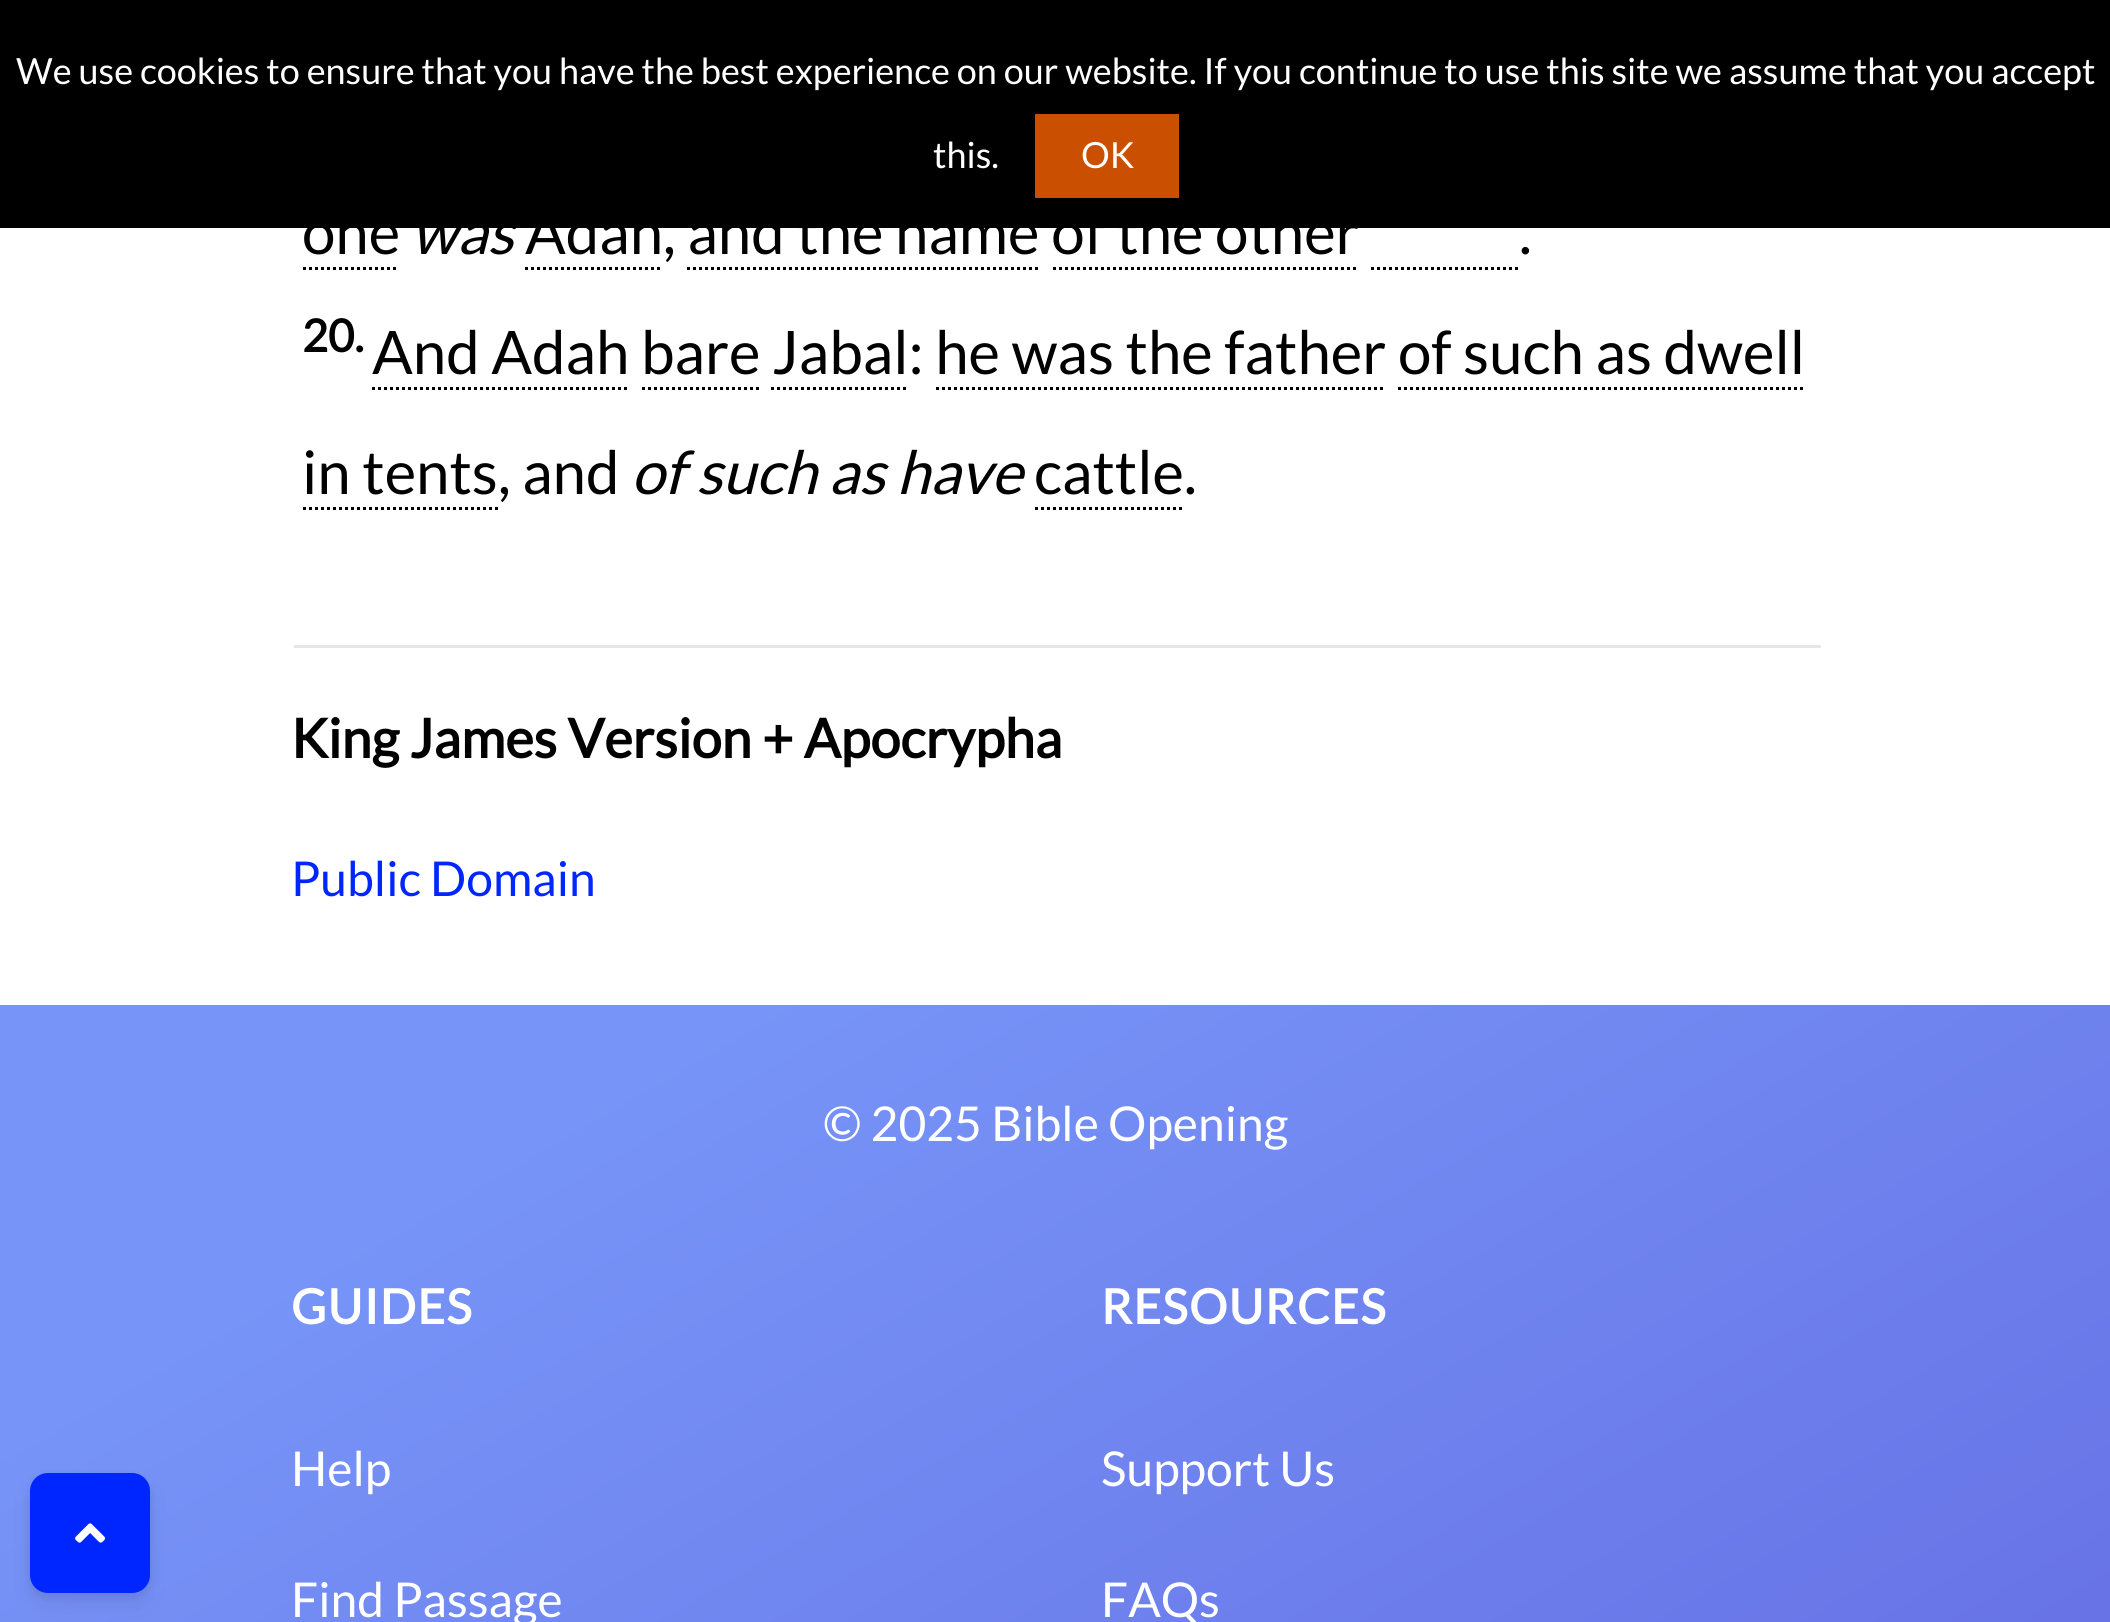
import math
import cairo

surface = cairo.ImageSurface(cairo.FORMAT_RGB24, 2110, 1622)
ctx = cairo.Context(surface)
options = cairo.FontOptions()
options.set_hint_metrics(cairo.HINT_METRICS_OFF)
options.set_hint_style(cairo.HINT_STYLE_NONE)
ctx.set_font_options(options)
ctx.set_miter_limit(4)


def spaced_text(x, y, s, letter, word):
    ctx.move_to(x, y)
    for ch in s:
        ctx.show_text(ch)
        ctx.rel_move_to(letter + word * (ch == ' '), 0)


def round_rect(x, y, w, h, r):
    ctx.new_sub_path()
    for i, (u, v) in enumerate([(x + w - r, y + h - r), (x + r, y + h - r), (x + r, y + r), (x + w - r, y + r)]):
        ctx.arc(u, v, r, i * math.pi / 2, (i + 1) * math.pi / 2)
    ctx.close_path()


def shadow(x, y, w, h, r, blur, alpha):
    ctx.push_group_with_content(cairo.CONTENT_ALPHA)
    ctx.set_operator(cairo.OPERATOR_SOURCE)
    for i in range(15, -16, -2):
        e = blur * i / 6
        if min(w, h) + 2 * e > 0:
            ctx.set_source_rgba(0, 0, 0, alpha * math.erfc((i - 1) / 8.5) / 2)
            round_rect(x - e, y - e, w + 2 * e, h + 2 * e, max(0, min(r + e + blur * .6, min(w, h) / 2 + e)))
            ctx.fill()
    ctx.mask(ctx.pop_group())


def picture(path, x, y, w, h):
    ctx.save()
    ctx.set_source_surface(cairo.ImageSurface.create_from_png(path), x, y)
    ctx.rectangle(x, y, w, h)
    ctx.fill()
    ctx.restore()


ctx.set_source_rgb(1, 1, 1)
ctx.paint()
ctx.set_source_rgb(0, 0, 0)
ctx.rectangle(0, 0, 2110, 228)
ctx.fill()
ctx.select_font_face("Lato")
ctx.set_font_size(36)
ctx.set_source_rgb(1, 1, 1)
ctx.move_to(16, 84)
ctx.show_text("We use cookies to ensure that you have the best experience on our website. If you continue to use this site we assume that you accept")
ctx.move_to(933, 168)
ctx.show_text("this.")
ctx.set_source_rgb(0.792, 0.314, 0)
ctx.rectangle(1035, 114, 144, 84)
ctx.fill()
ctx.set_source_rgb(1, 1, 1)
ctx.move_to(1081, 168)
ctx.show_text("OK")
ctx.set_font_size(60)
ctx.set_source_rgb(0, 0, 0)
ctx.move_to(302, 254)
ctx.show_text("one")
ctx.new_path()
ctx.move_to(303, 268.5)
ctx.line_to(399, 268.5)
ctx.set_line_width(3)
ctx.set_dash([3, 3])
ctx.stroke()
ctx.select_font_face("Lato", cairo.FONT_SLANT_ITALIC)
ctx.move_to(411, 254)
ctx.show_text("was")
ctx.select_font_face("Lato")
ctx.move_to(525, 254)
ctx.show_text("Adah, and the name of the other")
ctx.new_path()
ctx.move_to(525, 268.5)
ctx.line_to(663, 268.5)
ctx.stroke()
ctx.move_to(1519, 254)
ctx.show_text(".")
ctx.new_path()
ctx.move_to(687, 268.5)
ctx.line_to(1041, 268.5)
ctx.stroke()
ctx.new_path()
ctx.move_to(1053, 268.5)
ctx.line_to(1359, 268.5)
ctx.stroke()
ctx.new_path()
ctx.move_to(1371, 268.5)
ctx.line_to(1518, 268.5)
ctx.stroke()
ctx.select_font_face("Lato", cairo.FONT_SLANT_NORMAL, cairo.FONT_WEIGHT_BOLD)
ctx.set_font_size(45)
ctx.move_to(302, 352)
ctx.show_text("20.")
ctx.select_font_face("Lato")
ctx.set_font_size(60)
ctx.move_to(372, 374)
ctx.show_text("And Adah bare Jabal: he was the father of such as dwell")
ctx.new_path()
ctx.move_to(372, 388.5)
ctx.line_to(630, 388.5)
ctx.stroke()
ctx.new_path()
ctx.move_to(642, 388.5)
ctx.line_to(762, 388.5)
ctx.stroke()
ctx.new_path()
ctx.move_to(771, 388.5)
ctx.line_to(909, 388.5)
ctx.stroke()
ctx.new_path()
ctx.move_to(936, 388.5)
ctx.line_to(1386, 388.5)
ctx.stroke()
ctx.new_path()
ctx.move_to(1398, 388.5)
ctx.line_to(1806, 388.5)
ctx.stroke()
ctx.move_to(302, 494)
ctx.show_text("in tents, and")
ctx.new_path()
ctx.move_to(303, 508.5)
ctx.line_to(498, 508.5)
ctx.stroke()
ctx.select_font_face("Lato", cairo.FONT_SLANT_ITALIC)
ctx.move_to(631, 494)
ctx.show_text("of such as have")
ctx.select_font_face("Lato")
ctx.move_to(1034, 494)
ctx.show_text("cattle.")
ctx.new_path()
ctx.move_to(1035, 508.5)
ctx.line_to(1185, 508.5)
ctx.stroke()
ctx.set_source_rgb(0.902, 0.902, 0.902)
ctx.rectangle(294, 645, 1527, 3)
ctx.fill()
ctx.select_font_face("Lato", cairo.FONT_SLANT_NORMAL, cairo.FONT_WEIGHT_BOLD)
ctx.set_font_size(54)
ctx.set_source_rgb(0, 0, 0)
ctx.move_to(291, 758)
ctx.show_text("King James Version + Apocrypha")
ctx.select_font_face("Lato")
ctx.set_font_size(48)
ctx.set_source_rgb(0, 0.149, 1)
ctx.move_to(291, 896)
ctx.show_text("Public Domain")
gradient = cairo.LinearGradient(471, 733, 1641, 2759)
gradient.add_color_stop_rgba(0.15, 0.467, 0.584, 0.973, 1)
gradient.add_color_stop_rgba(0.7, 0.404, 0.447, 0.898, 1)
gradient.add_color_stop_rgba(0.94, 0.333, 0.353, 0.749, 1)
ctx.set_source(gradient)
ctx.rectangle(0, 1005, 2110, 617)
ctx.fill()
ctx.set_source_rgb(0, 0, 0)
shadow(30, 1476, 120, 120, 18, 4.5, 0.08)
ctx.set_source_rgb(0.196, 0.196, 0.365)
shadow(30, 1485, 120, 120, 18, 9, 0.11)
ctx.set_source_rgb(0, 0.149, 1)
round_rect(31.5, 1474.5, 117, 117, 16.5)
ctx.fill_preserve()
ctx.set_dash([])
ctx.stroke()
picture("img1.png", 75, 1523, 31, 20)
ctx.set_source_rgb(1, 1, 1)
ctx.move_to(823, 1141)
ctx.show_text("© 2025 Bible Opening")
ctx.select_font_face("Lato", cairo.FONT_SLANT_NORMAL, cairo.FONT_WEIGHT_BOLD)
spaced_text(291, 1324, "GUIDES", 1.25, 0)
ctx.select_font_face("Lato")
ctx.move_to(291, 1486)
ctx.show_text("Help")
ctx.move_to(291, 1617)
ctx.show_text("Find Passage")
ctx.select_font_face("Lato", cairo.FONT_SLANT_NORMAL, cairo.FONT_WEIGHT_BOLD)
spaced_text(1101, 1324, "RESOURCES", 1.25, 0)
ctx.select_font_face("Lato")
ctx.move_to(1101, 1486)
ctx.show_text("Support Us")
ctx.move_to(1101, 1617)
ctx.show_text("FAQs")
surface.write_to_png("page.png")
